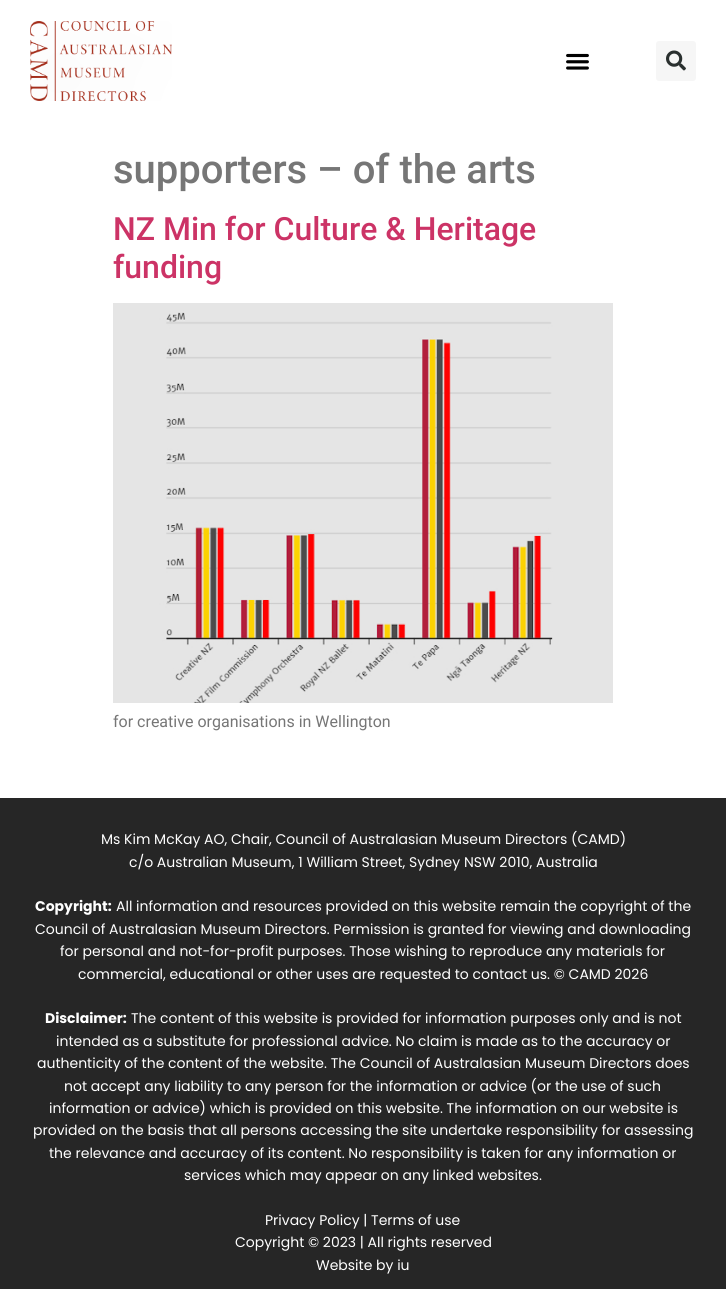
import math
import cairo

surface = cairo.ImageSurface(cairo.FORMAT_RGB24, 726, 1289)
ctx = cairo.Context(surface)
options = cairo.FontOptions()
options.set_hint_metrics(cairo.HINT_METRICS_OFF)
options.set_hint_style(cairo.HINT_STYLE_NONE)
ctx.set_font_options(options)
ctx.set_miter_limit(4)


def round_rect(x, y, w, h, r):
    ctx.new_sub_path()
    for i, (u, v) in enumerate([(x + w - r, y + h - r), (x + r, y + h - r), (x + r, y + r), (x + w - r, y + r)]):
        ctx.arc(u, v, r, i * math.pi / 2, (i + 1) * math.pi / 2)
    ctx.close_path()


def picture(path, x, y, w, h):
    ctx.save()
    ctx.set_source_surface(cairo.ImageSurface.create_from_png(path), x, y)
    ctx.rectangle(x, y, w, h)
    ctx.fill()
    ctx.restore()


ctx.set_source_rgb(1, 1, 1)
ctx.paint()
picture("img1.png", 30, 21, 142, 80)
picture("img2.png", 566, 53, 23, 17)
ctx.set_source_rgb(0.961, 0.961, 0.961)
round_rect(656, 41, 40, 40, 3)
ctx.fill()
picture("img3.png", 666, 50, 20, 21)
ctx.select_font_face("Roboto Medium")
ctx.set_font_size(40)
ctx.set_source_rgb(0.463, 0.463, 0.463)
ctx.move_to(113, 183)
ctx.show_text("supporters – of the arts")
ctx.set_font_size(32)
ctx.set_source_rgb(0.8, 0.2, 0.4)
ctx.move_to(113, 240)
ctx.show_text("NZ Min for Culture & Heritage")
ctx.move_to(113, 278)
ctx.show_text("funding")
picture("img4.png", 113, 303, 500, 400)
ctx.select_font_face("Roboto")
ctx.set_font_size(16)
ctx.set_source_rgb(0.463, 0.463, 0.463)
ctx.move_to(113, 727)
ctx.show_text("for creative organisations in Wellington")
ctx.set_source_rgb(0.149, 0.149, 0.149)
ctx.rectangle(0, 798, 726, 491)
ctx.fill()
ctx.select_font_face("Poppins")
ctx.set_font_size(14)
ctx.set_source_rgb(1, 1, 1)
ctx.move_to(101, 844)
ctx.show_text("Ms Kim McKay AO, Chair, Council of Australasian Museum Directors (CAMD)")
ctx.move_to(129, 867)
ctx.show_text("c/o Australian Museum, 1 William Street, Sydney NSW 2010, Australia")
ctx.select_font_face("Poppins", cairo.FONT_SLANT_NORMAL, cairo.FONT_WEIGHT_BOLD)
ctx.move_to(35, 911)
ctx.show_text("Copyright:")
ctx.select_font_face("Poppins")
ctx.move_to(116, 911)
ctx.show_text("All information and resources provided on this website remain the copyright of the")
ctx.move_to(35, 934)
ctx.show_text("Council of Australasian Museum Directors. Permission is granted for viewing and downloading")
ctx.move_to(60, 956)
ctx.show_text("for personal and not-for-profit purposes. Those wishing to reproduce any materials for")
ctx.move_to(78, 979)
ctx.show_text("commercial, educational or other uses are requested to contact us. © CAMD 2026")
ctx.select_font_face("Poppins", cairo.FONT_SLANT_NORMAL, cairo.FONT_WEIGHT_BOLD)
ctx.move_to(45, 1023)
ctx.show_text("Disclaimer:")
ctx.select_font_face("Poppins")
ctx.move_to(131, 1023)
ctx.show_text("The content of this website is provided for information purposes only and is not")
ctx.move_to(56, 1046)
ctx.show_text("intended as a substitute for professional advice. No claim is made as to the accuracy or")
ctx.move_to(37, 1068)
ctx.show_text("authenticity of the content of the website. The Council of Australasian Museum Directors does")
ctx.move_to(64, 1091)
ctx.show_text("not accept any liability to any person for the information or advice (or the use of such")
ctx.move_to(49, 1113)
ctx.show_text("information or advice) which is provided on this website. The information on our website is")
ctx.move_to(33, 1135)
ctx.show_text("provided on the basis that all persons accessing the site undertake responsibility for assessing")
ctx.move_to(49, 1158)
ctx.show_text("the relevance and accuracy of its content. No responsibility is taken for any information or")
ctx.move_to(184, 1180)
ctx.show_text("services which may appear on any linked websites.")
ctx.move_to(265, 1225)
ctx.show_text("Privacy Policy | Terms of use")
ctx.move_to(235, 1247)
ctx.show_text("Copyright © 2023 | All rights reserved")
ctx.move_to(316, 1270)
ctx.show_text("Website by iu")
surface.write_to_png("page.png")
